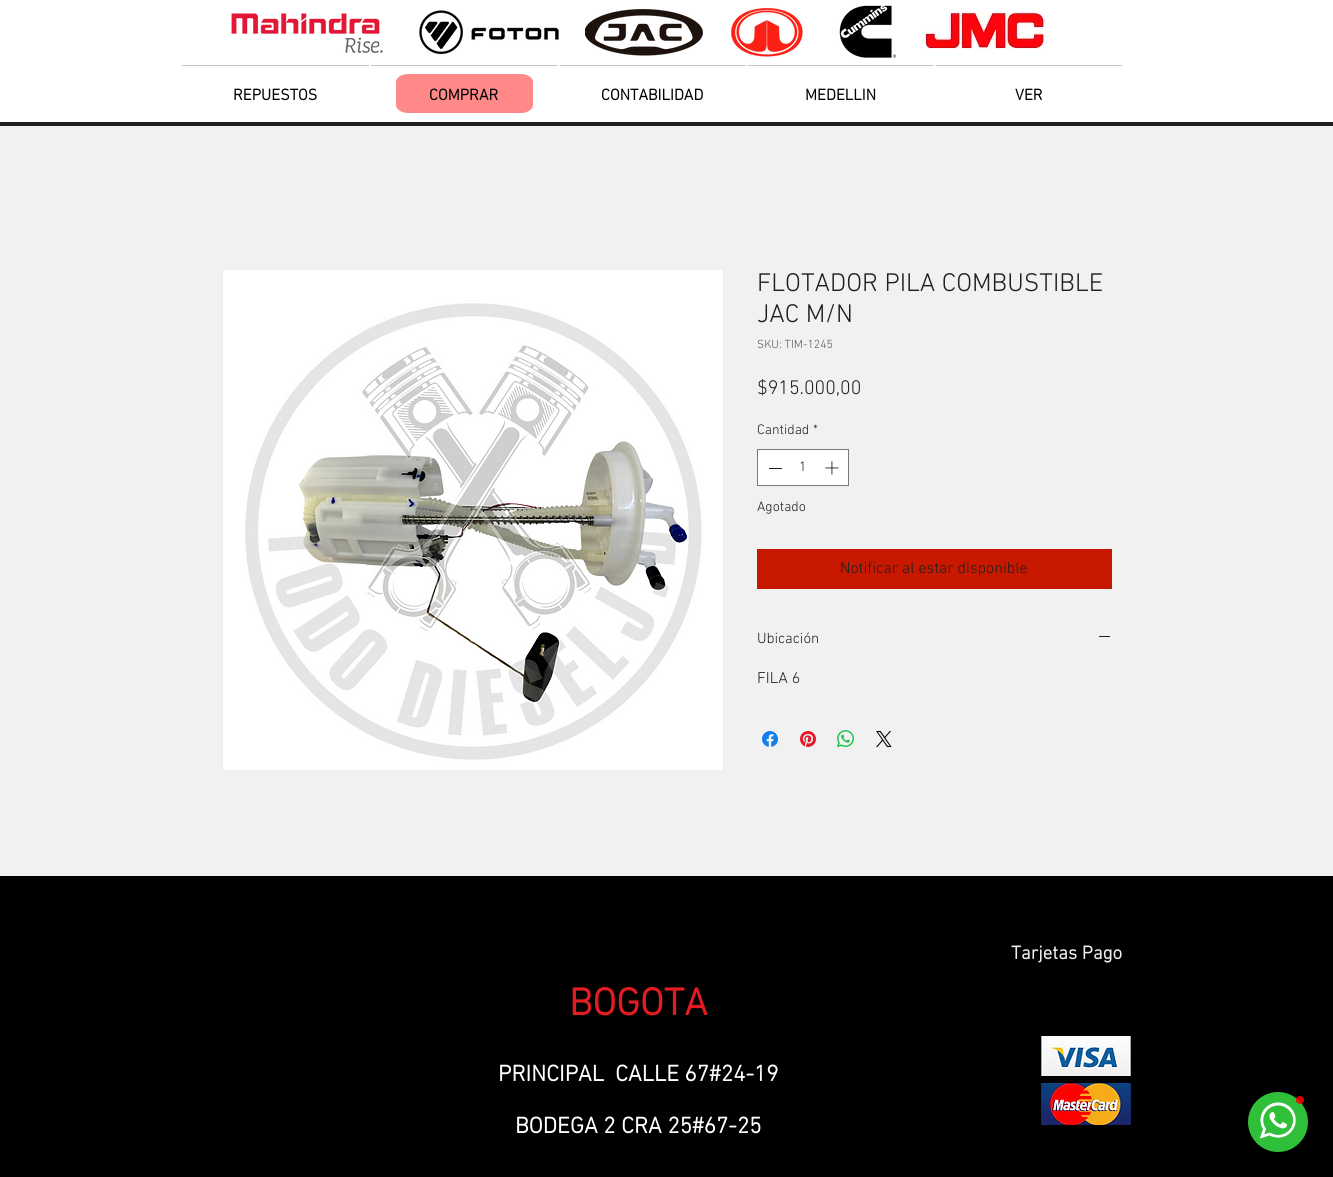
import math
import cairo

surface = cairo.ImageSurface(cairo.FORMAT_RGB24, 1333, 1177)
ctx = cairo.Context(surface)
options = cairo.FontOptions()
options.set_hint_metrics(cairo.HINT_METRICS_OFF)
options.set_hint_style(cairo.HINT_STYLE_NONE)
ctx.set_font_options(options)
ctx.set_miter_limit(4)


def picture(path, x, y, w, h):
    ctx.save()
    ctx.set_source_surface(cairo.ImageSurface.create_from_png(path), x, y)
    ctx.rectangle(x, y, w, h)
    ctx.fill()
    ctx.restore()


ctx.set_source_rgb(0.945, 0.945, 0.945)
ctx.paint()
ctx.set_source_rgb(1, 1, 1)
ctx.rectangle(0, 0, 1333, 122)
ctx.fill()
ctx.set_source_rgb(0.122, 0.122, 0.122)
ctx.rectangle(0, 122, 1333, 4)
ctx.fill()
picture("img1.png", 231, 13, 152, 40)
picture("img2.png", 419, 10, 140, 45)
picture("img3.png", 585, 9, 118, 47)
picture("img4.png", 731, 7, 72, 50)
picture("img5.png", 839, 5, 57, 53)
picture("img6.png", 924, 8, 122, 41)
ctx.set_source_rgb(1, 0.537, 0.537)
ctx.new_path()
ctx.move_to(521, 113)
ctx.line_to(408, 113)
ctx.curve_to(401, 113, 396, 109, 396, 105)
ctx.line_to(396, 82)
ctx.curve_to(396, 78, 401, 74, 408, 74)
ctx.line_to(521, 74)
ctx.curve_to(528, 74, 533, 78, 533, 82)
ctx.line_to(533, 105)
ctx.curve_to(533, 109, 528, 113, 521, 113)
ctx.close_path()
ctx.fill()
ctx.set_source_rgb(0.773, 0.773, 0.773)
ctx.rectangle(182, 65, 187, 1)
ctx.fill()
ctx.select_font_face("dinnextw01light", cairo.FONT_SLANT_NORMAL, cairo.FONT_WEIGHT_BOLD)
ctx.set_font_size(16)
ctx.set_source_rgb(0, 0, 0)
ctx.move_to(233, 100)
ctx.show_text("REPUESTOS")
ctx.set_source_rgb(0.773, 0.773, 0.773)
ctx.rectangle(371, 65, 187, 1)
ctx.fill()
ctx.set_source_rgb(0, 0, 0)
ctx.move_to(429, 100)
ctx.show_text("COMPRAR")
ctx.set_source_rgb(0.773, 0.773, 0.773)
ctx.rectangle(560, 65, 186, 1)
ctx.fill()
ctx.set_source_rgb(0, 0, 0)
ctx.move_to(601, 100)
ctx.show_text("CONTABILIDAD")
ctx.set_source_rgb(0.773, 0.773, 0.773)
ctx.rectangle(748, 65, 186, 1)
ctx.fill()
ctx.set_source_rgb(0, 0, 0)
ctx.move_to(805, 100)
ctx.show_text("MEDELLIN")
ctx.set_source_rgb(0.773, 0.773, 0.773)
ctx.rectangle(936, 65, 186, 1)
ctx.fill()
ctx.set_source_rgb(0, 0, 0)
ctx.move_to(1015, 100)
ctx.show_text("VER")
ctx.rectangle(222.5, 269.5, 501, 501)
ctx.set_source_rgb(0.933, 0.933, 0.933)
ctx.set_line_width(1)
ctx.stroke()
picture("img7.png", 223, 270, 500, 500)
ctx.select_font_face("dinnextw01light Light")
ctx.set_font_size(26)
ctx.set_source_rgb(0.122, 0.122, 0.122)
ctx.move_to(757, 291)
ctx.show_text("FLOTADOR PILA COMBUSTIBLE")
ctx.move_to(757, 322)
ctx.show_text("JAC M/N")
ctx.set_font_size(12)
ctx.set_source_rgb(0.353, 0.353, 0.353)
ctx.move_to(757, 348)
ctx.show_text("SKU: TIM-1245")
ctx.set_font_size(20)
ctx.set_source_rgb(0.122, 0.122, 0.122)
ctx.move_to(757, 394)
ctx.show_text("$915.000,00")
ctx.set_font_size(14)
ctx.move_to(757, 434)
ctx.show_text("Cantidad")
ctx.move_to(813, 434)
ctx.show_text("*")
ctx.set_source_rgb(1, 1, 1)
ctx.rectangle(757.5, 449.5, 91, 36)
ctx.fill_preserve()
ctx.set_source_rgb(0.475, 0.475, 0.475)
ctx.stroke()
ctx.set_source_rgb(0.122, 0.122, 0.122)
ctx.rectangle(769, 468, 13, 1)
ctx.fill()
ctx.move_to(799, 471)
ctx.show_text("1")
picture("img8.png", 825, 461, 14, 14)
ctx.move_to(757, 511)
ctx.show_text("Agotado")
ctx.set_source_rgb(0.788, 0.094, 0)
ctx.rectangle(757, 549, 355, 40)
ctx.fill()
ctx.set_font_size(16)
ctx.set_source_rgb(0.122, 0.122, 0.122)
ctx.move_to(840, 573)
ctx.show_text("Notificar al estar disponible")
ctx.set_font_size(15)
ctx.move_to(757, 643)
ctx.show_text("Ubicación")
ctx.rectangle(1099, 636, 11, 1)
ctx.fill()
ctx.set_font_size(16)
ctx.move_to(757, 683)
ctx.show_text("FILA 6")
picture("img9.png", 762, 731, 16, 16)
picture("img10.png", 800, 731, 16, 16)
picture("img11.png", 837, 730, 17, 17)
picture("img12.png", 876, 731, 16, 16)
ctx.set_source_rgb(0, 0, 0)
ctx.rectangle(0, 876, 1333, 301)
ctx.fill()
ctx.select_font_face("dinnextw01light", cairo.FONT_SLANT_NORMAL, cairo.FONT_WEIGHT_BOLD)
ctx.set_font_size(19)
ctx.set_source_rgb(0.933, 0.933, 0.933)
ctx.move_to(1011, 959)
ctx.show_text("Tarjetas Pago")
ctx.set_font_size(39)
ctx.set_source_rgb(0.886, 0.11, 0.129)
ctx.move_to(569, 1015)
ctx.show_text("BOGOTA")
ctx.set_font_size(23)
ctx.set_source_rgb(1, 1, 1)
ctx.move_to(498, 1081)
ctx.show_text("PRINCIPAL  CALLE 67#24-19")
ctx.move_to(515, 1133)
ctx.show_text("BODEGA 2 CRA 25#67-25")
picture("img13.png", 1041, 1036, 90, 40)
picture("img14.png", 1041, 1083, 90, 42)
picture("img15.png", 1248, 1092, 60, 60)
ctx.set_source_rgba(1, 0, 0, 0.85)
ctx.arc(1300, 1100, 4, 0, 2 * math.pi)
ctx.fill()
surface.write_to_png("page.png")
